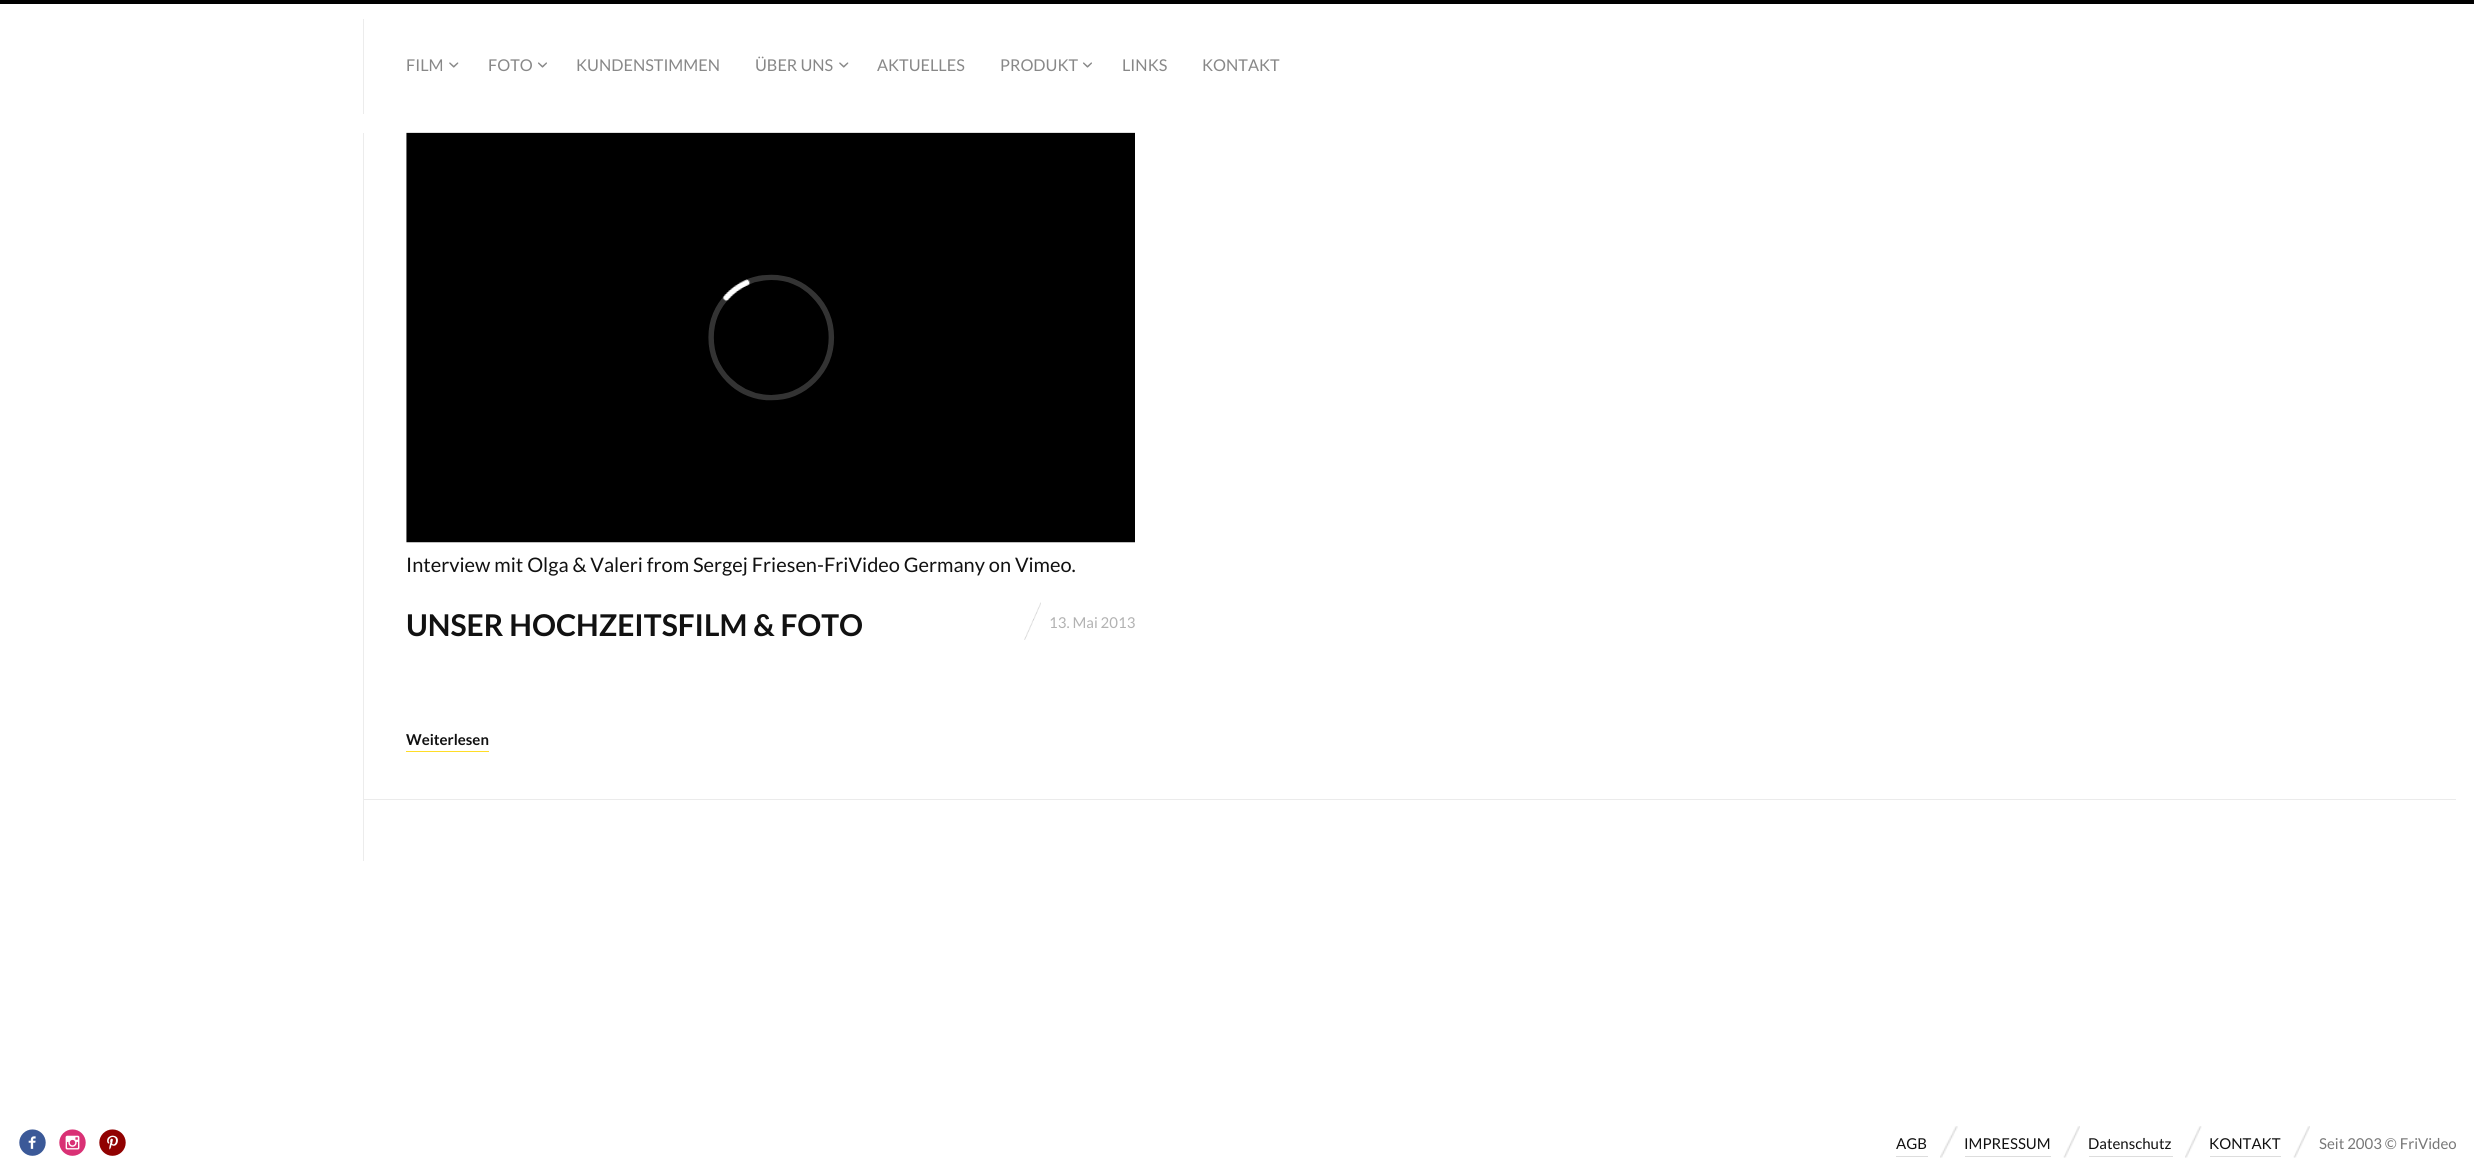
import math
import cairo

surface = cairo.ImageSurface(cairo.FORMAT_RGB24, 2474, 1175)
ctx = cairo.Context(surface)
options = cairo.FontOptions()
options.set_hint_metrics(cairo.HINT_METRICS_OFF)
options.set_hint_style(cairo.HINT_STYLE_NONE)
ctx.set_font_options(options)
ctx.set_miter_limit(4)


def picture(path, x, y, w, h):
    ctx.save()
    ctx.set_source_surface(cairo.ImageSurface.create_from_png(path), x, y)
    ctx.rectangle(x, y, w, h)
    ctx.fill()
    ctx.restore()


ctx.set_source_rgb(1, 1, 1)
ctx.paint()
ctx.set_source_rgb(0, 0, 0)
ctx.rectangle(0, 0, 2474, 4)
ctx.fill()
ctx.set_source_rgb(0.922, 0.922, 0.922)
ctx.rectangle(363, 19, 1, 95)
ctx.fill()
ctx.select_font_face("Lato")
ctx.set_font_size(16.25)
ctx.set_source_rgb(0.533, 0.533, 0.533)
ctx.move_to(406, 71)
ctx.show_text("FILM")
picture("img1.png", 449, 62, 10, 6)
ctx.move_to(488, 71)
ctx.show_text("FOTO")
picture("img2.png", 538, 62, 9, 6)
ctx.move_to(576, 71)
ctx.show_text("KUNDENSTIMMEN")
ctx.move_to(755, 71)
ctx.show_text("ÜBER UNS")
picture("img1.png", 839, 62, 10, 6)
ctx.move_to(877, 71)
ctx.show_text("AKTUELLES")
ctx.move_to(1000, 71)
ctx.show_text("PRODUKT")
picture("img2.png", 1083, 62, 9, 6)
ctx.move_to(1122, 71)
ctx.show_text("LINKS")
ctx.move_to(1202, 71)
ctx.show_text("KONTAKT")
ctx.set_source_rgb(0.922, 0.922, 0.922)
ctx.rectangle(363, 133, 1, 728)
ctx.fill()
picture("img3.png", 406, 132, 729, 411)
ctx.set_font_size(20)
ctx.set_source_rgb(0.067, 0.067, 0.067)
ctx.move_to(406, 572)
ctx.show_text("Interview mit Olga & Valeri from Sergej Friesen-FriVideo Germany on Vimeo.")
ctx.select_font_face("Lato", cairo.FONT_SLANT_NORMAL, cairo.FONT_WEIGHT_BOLD)
ctx.set_font_size(30)
ctx.move_to(406, 636)
ctx.show_text("UNSER HOCHZEITSFILM & FOTO")
picture("img4.png", 1024, 602, 17, 38)
ctx.select_font_face("Lato")
ctx.set_font_size(15)
ctx.set_source_rgb(0.698, 0.698, 0.698)
ctx.move_to(1049, 628)
ctx.show_text("13. Mai 2013")
ctx.select_font_face("Lato", cairo.FONT_SLANT_NORMAL, cairo.FONT_WEIGHT_BOLD)
ctx.set_source_rgb(0.067, 0.067, 0.067)
ctx.move_to(406, 745)
ctx.show_text("Weiterlesen")
ctx.set_source_rgb(1, 0.867, 0.157)
ctx.rectangle(406, 751, 83, 1)
ctx.fill()
ctx.set_source_rgb(0.918, 0.918, 0.918)
ctx.rectangle(364, 799, 2092, 1)
ctx.fill()
picture("img5.png", 19, 1129, 27, 27)
picture("img6.png", 59, 1129, 27, 27)
picture("img7.png", 99, 1129, 27, 27)
ctx.set_source_rgb(0.867, 0.867, 0.867)
ctx.rectangle(1896, 1156, 32, 1)
ctx.fill()
ctx.select_font_face("Lato")
ctx.set_source_rgb(0.067, 0.067, 0.067)
ctx.move_to(1896, 1149)
ctx.show_text("AGB")
picture("img8.png", 1940, 1126, 18, 32)
ctx.set_source_rgb(0.867, 0.867, 0.867)
ctx.rectangle(1965, 1156, 86, 1)
ctx.fill()
ctx.set_source_rgb(0.067, 0.067, 0.067)
ctx.move_to(1964, 1149)
ctx.show_text("IMPRESSUM")
picture("img9.png", 2063, 1126, 17, 32)
ctx.set_source_rgb(0.867, 0.867, 0.867)
ctx.rectangle(2089, 1156, 84, 1)
ctx.fill()
ctx.set_source_rgb(0.067, 0.067, 0.067)
ctx.move_to(2088, 1149)
ctx.show_text("Datenschutz")
picture("img10.png", 2185, 1126, 17, 32)
ctx.set_source_rgb(0.867, 0.867, 0.867)
ctx.rectangle(2210, 1156, 71, 1)
ctx.fill()
ctx.set_source_rgb(0.067, 0.067, 0.067)
ctx.move_to(2209, 1149)
ctx.show_text("KONTAKT")
picture("img11.png", 2293, 1126, 17, 32)
ctx.set_source_rgb(0.467, 0.467, 0.467)
ctx.move_to(2319, 1149)
ctx.show_text("Seit 2003 © FriVideo")
surface.write_to_png("page.png")
